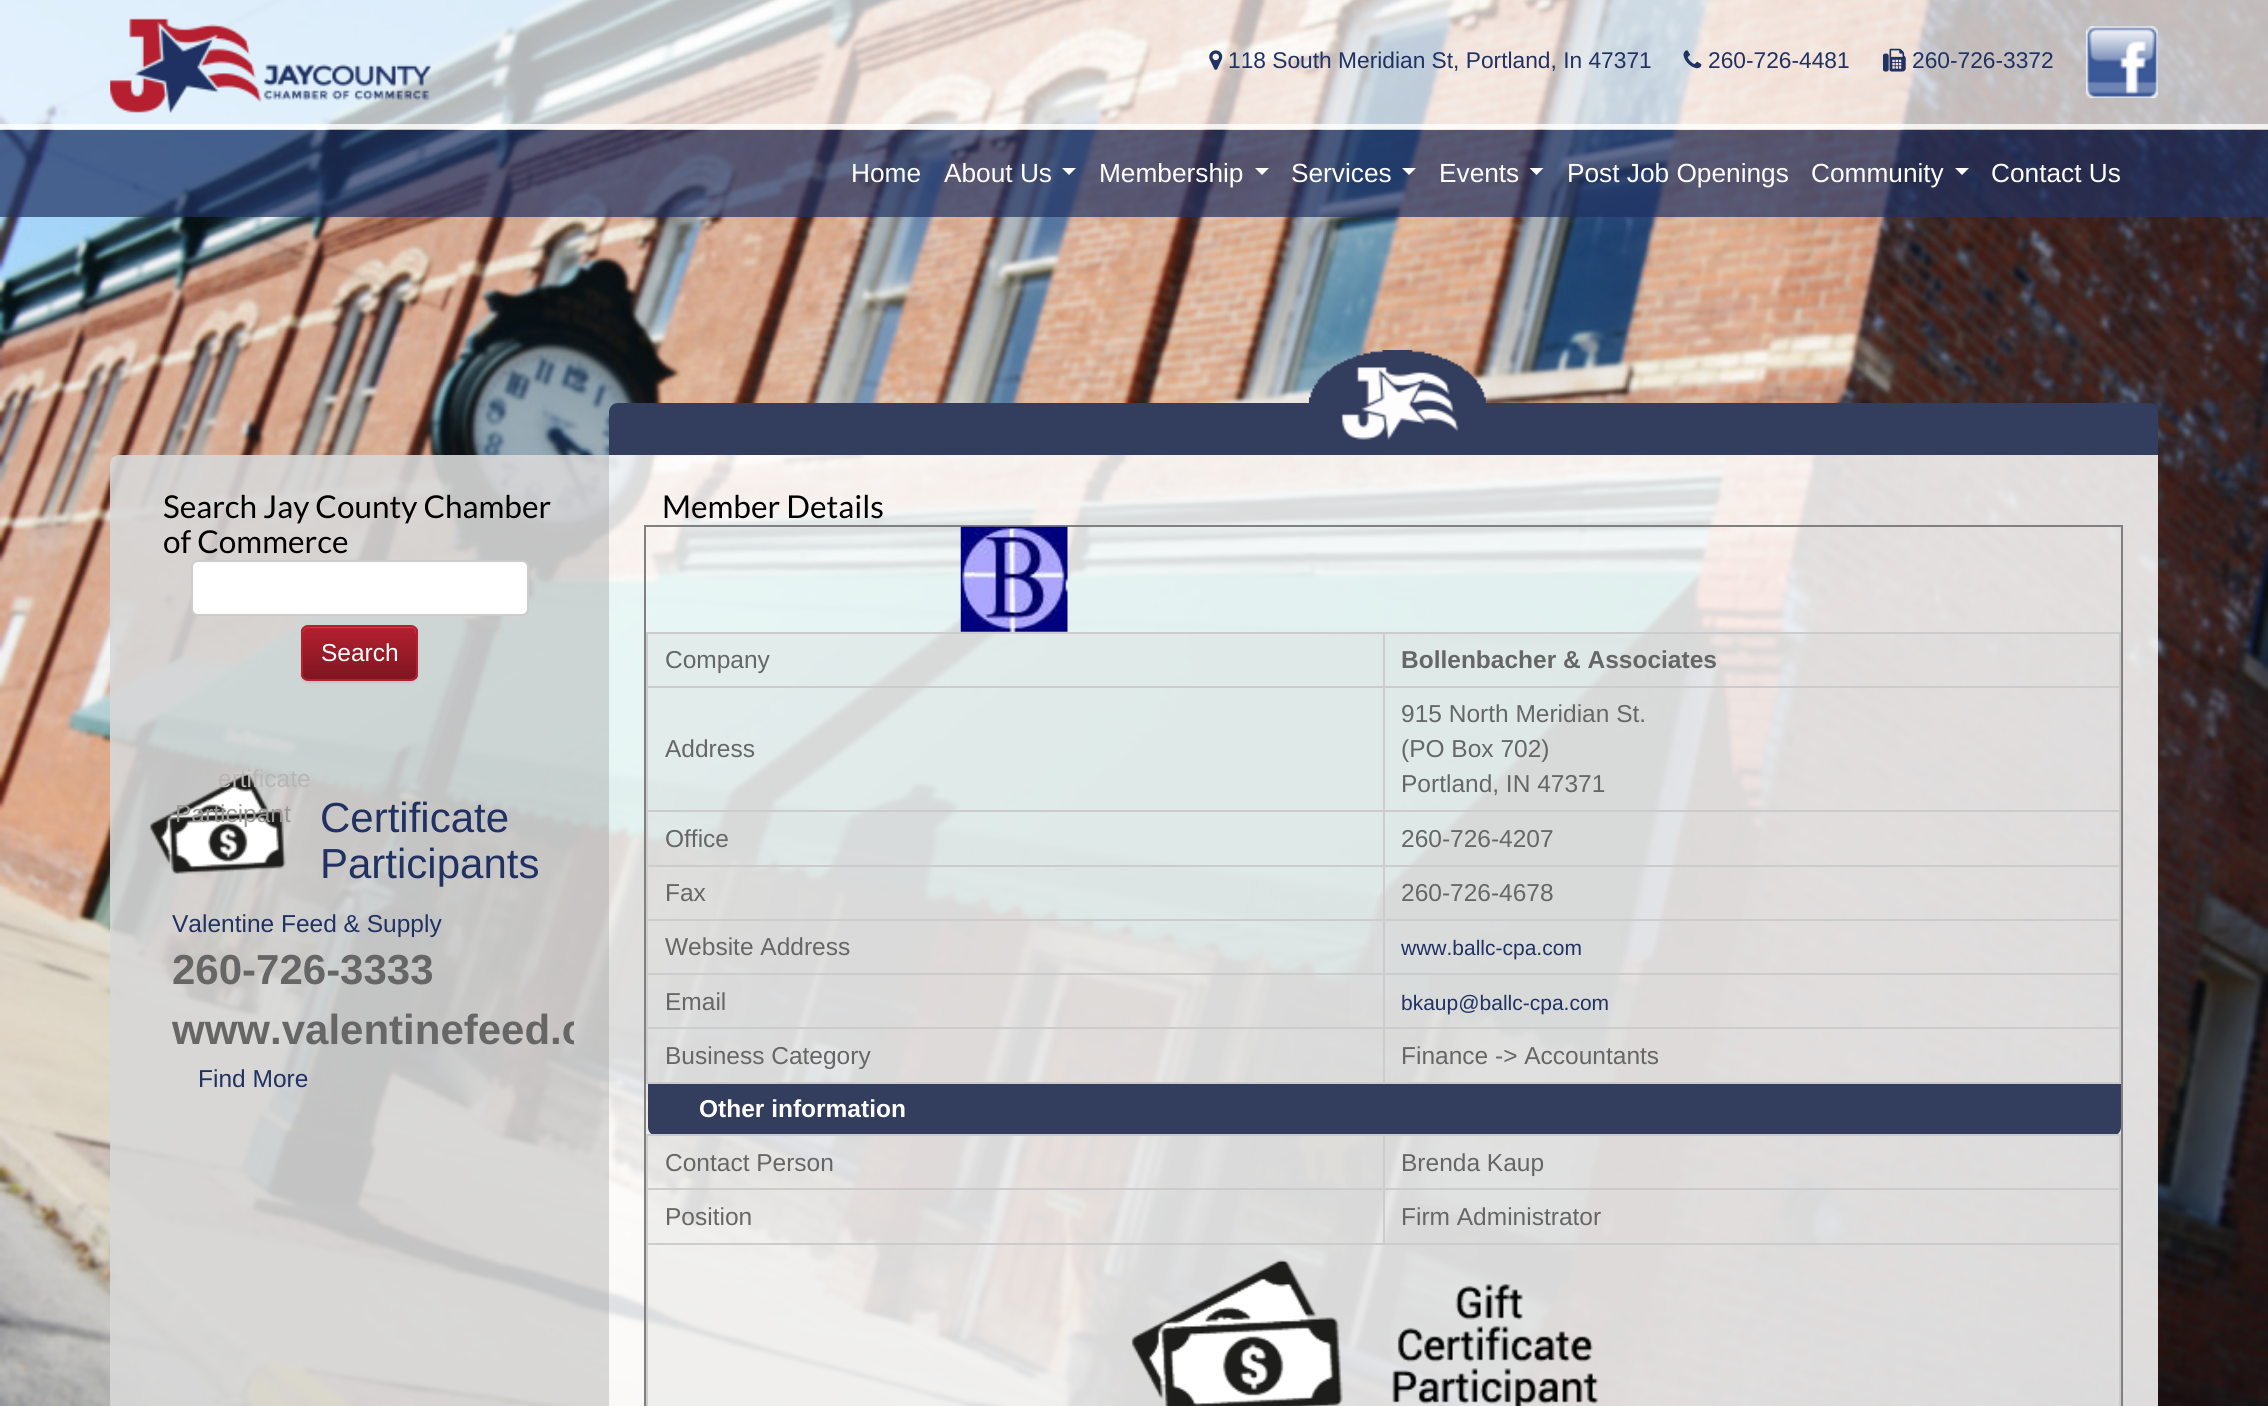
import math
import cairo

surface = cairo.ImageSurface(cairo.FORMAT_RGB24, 2268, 1406)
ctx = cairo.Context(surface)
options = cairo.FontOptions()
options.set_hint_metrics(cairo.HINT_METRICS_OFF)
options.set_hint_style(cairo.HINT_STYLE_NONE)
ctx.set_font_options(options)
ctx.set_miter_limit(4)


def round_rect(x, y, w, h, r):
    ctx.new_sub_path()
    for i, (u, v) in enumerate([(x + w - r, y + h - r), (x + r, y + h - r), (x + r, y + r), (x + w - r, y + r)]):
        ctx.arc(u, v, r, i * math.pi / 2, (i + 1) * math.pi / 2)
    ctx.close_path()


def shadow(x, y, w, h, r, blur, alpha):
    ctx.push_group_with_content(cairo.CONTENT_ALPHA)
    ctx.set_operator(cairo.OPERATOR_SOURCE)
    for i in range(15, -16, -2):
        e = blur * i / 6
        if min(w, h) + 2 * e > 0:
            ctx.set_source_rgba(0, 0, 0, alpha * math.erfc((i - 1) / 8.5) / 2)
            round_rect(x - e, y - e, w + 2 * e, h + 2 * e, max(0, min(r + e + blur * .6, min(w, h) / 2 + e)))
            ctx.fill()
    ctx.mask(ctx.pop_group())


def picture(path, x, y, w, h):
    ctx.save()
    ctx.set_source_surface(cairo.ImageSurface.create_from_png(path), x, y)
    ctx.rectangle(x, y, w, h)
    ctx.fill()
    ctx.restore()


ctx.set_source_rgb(1, 1, 1)
ctx.paint()
picture("img1.png", 0, 0, 2268, 1406)
ctx.set_source_rgba(1, 1, 1, 0.7)
ctx.rectangle(0, 0, 2268, 130)
ctx.fill()
ctx.set_source_rgba(1, 1, 1, 0.8)
ctx.rectangle(0, 124, 2268, 5)
ctx.fill()
picture("img2.png", 110, 18, 321, 96)
picture("img3.png", 1209, 50, 14, 20)
ctx.select_font_face("Liberation Sans")
ctx.set_font_size(22.75)
ctx.set_source_rgb(0.125, 0.192, 0.384)
ctx.move_to(1228, 68)
ctx.show_text("118 South Meridian St, Portland, In 47371")
picture("img4.png", 1683, 50, 19, 19)
ctx.move_to(1708, 68)
ctx.show_text("260-726-4481")
picture("img5.png", 1883, 48, 23, 24)
ctx.move_to(1912, 68)
ctx.show_text("260-726-3372")
picture("img6.png", 2086, 26, 72, 72)
ctx.set_source_rgba(0.125, 0.192, 0.384, 0.7)
ctx.rectangle(0, 130, 2268, 87)
ctx.fill()
ctx.set_font_size(26.25)
ctx.set_source_rgb(1, 1, 1)
ctx.move_to(851, 182)
ctx.show_text("Home")
ctx.move_to(944, 182)
ctx.show_text("About Us")
ctx.new_path()
ctx.move_to(1062, 168)
ctx.line_to(1076, 168)
ctx.line_to(1069, 175)
ctx.close_path()
ctx.fill()
ctx.move_to(1099, 182)
ctx.show_text("Membership")
ctx.new_path()
ctx.move_to(1255, 168)
ctx.line_to(1269, 168)
ctx.line_to(1262, 175)
ctx.close_path()
ctx.fill()
ctx.move_to(1291, 182)
ctx.show_text("Services")
ctx.new_path()
ctx.move_to(1402, 168)
ctx.line_to(1416, 168)
ctx.line_to(1409, 175)
ctx.close_path()
ctx.fill()
ctx.move_to(1439, 182)
ctx.show_text("Events")
ctx.new_path()
ctx.move_to(1529.5, 168)
ctx.line_to(1543.5, 168)
ctx.line_to(1536.5, 175)
ctx.close_path()
ctx.fill()
ctx.move_to(1567, 182)
ctx.show_text("Post Job Openings")
ctx.move_to(1811, 182)
ctx.show_text("Community")
ctx.new_path()
ctx.move_to(1955, 168)
ctx.line_to(1969, 168)
ctx.line_to(1962, 175)
ctx.close_path()
ctx.fill()
ctx.move_to(1991, 182)
ctx.show_text("Contact Us")
ctx.set_source_rgba(0.843, 0.843, 0.843, 0.9)
ctx.new_path()
ctx.move_to(119, 455)
ctx.line_to(609, 455)
ctx.line_to(609, 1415)
ctx.line_to(119, 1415)
ctx.curve_to(114, 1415, 110, 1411, 110, 1406)
ctx.line_to(110, 464)
ctx.curve_to(110, 459, 114, 455, 119, 455)
ctx.close_path()
ctx.fill()
ctx.select_font_face("Lato")
ctx.set_font_size(31.5)
ctx.set_source_rgb(0, 0, 0)
ctx.move_to(163, 518)
ctx.show_text("Search Jay County Chamber")
ctx.move_to(163, 553)
ctx.show_text("of Commerce")
ctx.set_source_rgb(1, 1, 1)
round_rect(192, 561, 336, 54, 6)
ctx.fill_preserve()
ctx.set_source_rgb(0.8, 0.8, 0.8)
ctx.stroke()
ctx.set_source_rgb(0, 0, 0)
shadow(301, 627, 117, 56, 7, 1, 0.07)
ctx.save()
round_rect(301, 625, 117, 56, 7)
ctx.clip()
gradient = cairo.LinearGradient(360, 627, 360, 679)
gradient.add_color_stop_rgba(0, 0.71, 0.125, 0.184, 1)
gradient.add_color_stop_rgba(1, 0.494, 0.086, 0.125, 1)
ctx.set_source(gradient)
ctx.rectangle(301, 627, 117, 52)
ctx.fill()
ctx.restore()
ctx.set_source_rgba(1, 1, 1, 0.15)
ctx.new_path()
ctx.move_to(308, 628)
ctx.line_to(411, 628)
ctx.curve_to(417, 628, 416, 638, 416, 641)
ctx.line_to(416, 677)
ctx.curve_to(417, 676, 417, 675, 417, 674)
ctx.line_to(417, 632)
ctx.curve_to(417, 629, 415, 627, 412, 627)
ctx.line_to(308, 627)
ctx.curve_to(305, 627, 303, 629, 303, 632)
ctx.line_to(303, 634)
ctx.curve_to(303, 631, 305, 628, 308, 628)
ctx.close_path()
ctx.fill()
round_rect(302, 626, 115, 54, 6)
ctx.set_source_rgb(0.71, 0.125, 0.184)
ctx.stroke()
ctx.select_font_face("Liberation Sans")
ctx.set_font_size(24.5)
ctx.set_source_rgb(1, 1, 1)
ctx.move_to(321, 661)
ctx.show_text("Search")
picture("img7.png", 150, 773, 136, 101)
ctx.set_source_rgb(0.71, 0.714, 0.71)
ctx.move_to(218, 787)
ctx.show_text("ertificate")
ctx.set_source_rgb(0.6, 0.596, 0.592)
ctx.move_to(175, 822)
ctx.show_text("Participant")
ctx.set_font_size(42)
ctx.set_source_rgb(0.125, 0.192, 0.384)
ctx.move_to(320, 832)
ctx.show_text("Certificate")
ctx.move_to(320, 878)
ctx.show_text("Participants")
ctx.set_font_size(24.5)
ctx.move_to(172, 932)
ctx.show_text("Valentine Feed & Supply")
ctx.select_font_face("Liberation Sans", cairo.FONT_SLANT_NORMAL, cairo.FONT_WEIGHT_BOLD)
ctx.set_font_size(42)
ctx.set_source_rgb(0.4, 0.4, 0.4)
ctx.move_to(172, 984)
ctx.show_text("260-726-3333")
ctx.save()
ctx.rectangle(145, 761, 429, 335)
ctx.clip()
ctx.move_to(172, 1044)
ctx.show_text("www.valentinefeed.c")
ctx.restore()
ctx.select_font_face("Liberation Sans")
ctx.set_font_size(24.5)
ctx.set_source_rgb(0.125, 0.192, 0.384)
ctx.move_to(198, 1087)
ctx.show_text("Find More")
ctx.set_source_rgb(0.2, 0.239, 0.369)
ctx.new_path()
ctx.move_to(618, 403)
ctx.line_to(2149, 403)
ctx.curve_to(2154, 403, 2158, 407, 2158, 412)
ctx.line_to(2158, 455)
ctx.line_to(609, 455)
ctx.line_to(609, 412)
ctx.curve_to(609, 407, 613, 403, 618, 403)
ctx.close_path()
ctx.fill()
picture("img8.png", 1309, 350, 177, 90)
ctx.set_source_rgba(1, 1, 1, 0.85)
ctx.rectangle(609, 455, 1549, 951)
ctx.fill()
ctx.select_font_face("Lato")
ctx.set_font_size(31.5)
ctx.set_source_rgb(0, 0, 0)
ctx.move_to(662, 518)
ctx.show_text("Member Details")
ctx.set_source_rgb(0.502, 0.502, 0.502)
ctx.rectangle(644, 525, 1479, 2)
ctx.fill()
ctx.rectangle(2121, 525, 2, 881)
ctx.fill()
ctx.rectangle(644, 525, 2, 881)
ctx.fill()
picture("img9.png", 960, 526, 108, 106)
ctx.set_source_rgba(0.843, 0.843, 0.843, 0.3)
ctx.rectangle(648, 634, 735, 52)
ctx.fill()
ctx.set_source_rgb(0.8, 0.8, 0.8)
ctx.rectangle(1383, 632, 738, 2)
ctx.fill()
ctx.rectangle(1383, 686, 738, 2)
ctx.fill()
ctx.rectangle(1383, 810, 738, 2)
ctx.fill()
ctx.rectangle(1383, 865, 738, 2)
ctx.fill()
ctx.rectangle(1383, 919, 738, 2)
ctx.fill()
ctx.rectangle(1383, 973, 738, 2)
ctx.fill()
ctx.rectangle(1383, 1027, 738, 2)
ctx.fill()
ctx.rectangle(2119, 1027, 2, 56)
ctx.fill()
ctx.set_source_rgb(0.2, 0.239, 0.369)
ctx.new_path()
ctx.move_to(648, 1083)
ctx.line_to(2121, 1083)
ctx.line_to(2121, 1127)
ctx.curve_to(2121, 1132, 2117, 1136, 2112, 1136)
ctx.line_to(657, 1136)
ctx.curve_to(652, 1136, 648, 1132, 648, 1127)
ctx.close_path()
ctx.fill()
ctx.set_source_rgb(0.8, 0.8, 0.8)
ctx.rectangle(1383, 1082, 738, 2)
ctx.fill()
ctx.rectangle(1383, 1027, 2, 56)
ctx.fill()
ctx.rectangle(646, 1027, 738, 2)
ctx.fill()
ctx.rectangle(1383, 973, 2, 56)
ctx.fill()
ctx.rectangle(646, 973, 738, 2)
ctx.fill()
ctx.rectangle(1383, 919, 2, 56)
ctx.fill()
ctx.rectangle(646, 919, 738, 2)
ctx.fill()
ctx.rectangle(1383, 865, 2, 56)
ctx.fill()
ctx.rectangle(646, 865, 738, 2)
ctx.fill()
ctx.rectangle(1383, 810, 2, 56)
ctx.fill()
ctx.rectangle(646, 810, 738, 2)
ctx.fill()
ctx.rectangle(1383, 686, 2, 126)
ctx.fill()
ctx.rectangle(646, 686, 738, 2)
ctx.fill()
ctx.rectangle(1383, 632, 2, 56)
ctx.fill()
ctx.rectangle(646, 632, 738, 2)
ctx.fill()
ctx.rectangle(646, 1082, 738, 2)
ctx.fill()
ctx.rectangle(646, 1027, 2, 56)
ctx.fill()
ctx.rectangle(646, 973, 2, 56)
ctx.fill()
ctx.rectangle(646, 919, 2, 56)
ctx.fill()
ctx.rectangle(646, 865, 2, 56)
ctx.fill()
ctx.rectangle(646, 810, 2, 56)
ctx.fill()
ctx.rectangle(646, 686, 2, 126)
ctx.fill()
ctx.rectangle(646, 632, 2, 56)
ctx.fill()
ctx.select_font_face("Liberation Sans")
ctx.set_font_size(24.5)
ctx.set_source_rgb(0.4, 0.4, 0.4)
ctx.move_to(665, 668)
ctx.show_text("Company")
ctx.set_source_rgba(0.843, 0.843, 0.843, 0.3)
ctx.rectangle(1385, 634, 734, 52)
ctx.fill()
ctx.set_source_rgb(0.8, 0.8, 0.8)
ctx.rectangle(2119, 973, 2, 56)
ctx.fill()
ctx.rectangle(2119, 919, 2, 56)
ctx.fill()
ctx.rectangle(2119, 865, 2, 56)
ctx.fill()
ctx.rectangle(2119, 810, 2, 56)
ctx.fill()
ctx.rectangle(2119, 686, 2, 126)
ctx.fill()
ctx.rectangle(2119, 632, 2, 56)
ctx.fill()
ctx.select_font_face("Liberation Sans", cairo.FONT_SLANT_NORMAL, cairo.FONT_WEIGHT_BOLD)
ctx.set_source_rgb(0.4, 0.4, 0.4)
ctx.move_to(1401, 668)
ctx.show_text("Bollenbacher & Associates")
ctx.set_source_rgba(0.843, 0.843, 0.843, 0.3)
ctx.rectangle(648, 688, 735, 122)
ctx.fill()
ctx.select_font_face("Liberation Sans")
ctx.set_source_rgb(0.4, 0.4, 0.4)
ctx.move_to(665, 757)
ctx.show_text("Address")
ctx.set_source_rgba(0.843, 0.843, 0.843, 0.3)
ctx.rectangle(1385, 688, 734, 122)
ctx.fill()
ctx.set_source_rgb(0.4, 0.4, 0.4)
ctx.move_to(1401, 722)
ctx.show_text("915 North Meridian St.")
ctx.move_to(1401, 757)
ctx.show_text("(PO Box 702)")
ctx.move_to(1401, 792)
ctx.show_text("Portland, IN 47371")
ctx.set_source_rgba(0.843, 0.843, 0.843, 0.3)
ctx.rectangle(648, 812, 735, 53)
ctx.fill()
ctx.set_source_rgb(0.4, 0.4, 0.4)
ctx.move_to(665, 847)
ctx.show_text("Office")
ctx.set_source_rgba(0.843, 0.843, 0.843, 0.3)
ctx.rectangle(1385, 812, 734, 53)
ctx.fill()
ctx.set_source_rgb(0.4, 0.4, 0.4)
ctx.move_to(1401, 847)
ctx.show_text("260-726-4207")
ctx.set_source_rgba(0.843, 0.843, 0.843, 0.3)
ctx.rectangle(713, 867, 670, 52)
ctx.fill()
ctx.set_source_rgb(0.4, 0.4, 0.4)
ctx.move_to(665, 901)
ctx.show_text("Fax")
ctx.set_source_rgba(0.843, 0.843, 0.843, 0.3)
ctx.rectangle(1385, 867, 734, 52)
ctx.fill()
ctx.set_source_rgb(0.4, 0.4, 0.4)
ctx.move_to(1401, 901)
ctx.show_text("260-726-4678")
ctx.set_source_rgba(0.843, 0.843, 0.843, 0.3)
ctx.rectangle(696, 921, 678, 52)
ctx.fill()
ctx.set_source_rgb(0.4, 0.4, 0.4)
ctx.move_to(665, 955)
ctx.show_text("Website Address")
ctx.set_source_rgba(0.843, 0.843, 0.843, 0.3)
ctx.rectangle(1620, 921, 499, 52)
ctx.fill()
ctx.set_font_size(21)
ctx.set_source_rgb(0.125, 0.192, 0.384)
ctx.move_to(1401, 955)
ctx.show_text("www.ballc-cpa.com")
ctx.set_source_rgba(0.843, 0.843, 0.843, 0.3)
ctx.rectangle(668, 975, 682, 52)
ctx.fill()
ctx.set_font_size(24.5)
ctx.set_source_rgb(0.4, 0.4, 0.4)
ctx.move_to(665, 1010)
ctx.show_text("Email")
ctx.set_source_rgba(0.843, 0.843, 0.843, 0.3)
ctx.rectangle(1429, 975, 690, 52)
ctx.fill()
ctx.set_font_size(21)
ctx.set_source_rgb(0.125, 0.192, 0.384)
ctx.move_to(1401, 1010)
ctx.show_text("bkaup@ballc-cpa.com")
ctx.set_source_rgba(0.843, 0.843, 0.843, 0.3)
ctx.rectangle(659, 1029, 595, 53)
ctx.fill()
ctx.set_font_size(24.5)
ctx.set_source_rgb(0.4, 0.4, 0.4)
ctx.move_to(665, 1064)
ctx.show_text("Business Category")
ctx.set_source_rgba(0.843, 0.843, 0.843, 0.3)
ctx.rectangle(1415, 1029, 704, 53)
ctx.fill()
ctx.set_source_rgb(0.4, 0.4, 0.4)
ctx.move_to(1401, 1064)
ctx.show_text("Finance -> Accountants")
ctx.select_font_face("Liberation Sans", cairo.FONT_SLANT_NORMAL, cairo.FONT_WEIGHT_BOLD)
ctx.set_source_rgb(1, 1, 1)
ctx.move_to(699, 1117)
ctx.show_text("Other information")
ctx.set_source_rgba(0.843, 0.843, 0.843, 0.3)
ctx.rectangle(648, 1136, 714, 52)
ctx.fill()
ctx.set_source_rgb(0.8, 0.8, 0.8)
ctx.rectangle(1383, 1134, 738, 2)
ctx.fill()
ctx.rectangle(1383, 1188, 738, 2)
ctx.fill()
ctx.rectangle(646, 1243, 1475, 2)
ctx.fill()
ctx.rectangle(1383, 1188, 2, 56)
ctx.fill()
ctx.rectangle(646, 1188, 738, 2)
ctx.fill()
ctx.rectangle(1383, 1134, 2, 56)
ctx.fill()
ctx.rectangle(646, 1134, 738, 2)
ctx.fill()
ctx.rectangle(646, 1243, 2, 163)
ctx.fill()
ctx.rectangle(646, 1188, 2, 56)
ctx.fill()
ctx.rectangle(646, 1134, 2, 56)
ctx.fill()
ctx.select_font_face("Liberation Sans")
ctx.set_source_rgb(0.4, 0.4, 0.4)
ctx.move_to(665, 1171)
ctx.show_text("Contact Person")
ctx.set_source_rgba(0.843, 0.843, 0.843, 0.3)
ctx.rectangle(1387, 1136, 732, 52)
ctx.fill()
ctx.set_source_rgb(0.8, 0.8, 0.8)
ctx.rectangle(2119, 1243, 2, 163)
ctx.fill()
ctx.rectangle(2119, 1188, 2, 56)
ctx.fill()
ctx.rectangle(2119, 1134, 2, 56)
ctx.fill()
ctx.set_source_rgb(0.4, 0.4, 0.4)
ctx.move_to(1401, 1171)
ctx.show_text("Brenda Kaup")
ctx.set_source_rgba(0.843, 0.843, 0.843, 0.3)
ctx.rectangle(648, 1190, 735, 53)
ctx.fill()
ctx.set_source_rgb(0.4, 0.4, 0.4)
ctx.move_to(665, 1225)
ctx.show_text("Position")
ctx.set_source_rgba(0.843, 0.843, 0.843, 0.3)
ctx.rectangle(1385, 1190, 734, 53)
ctx.fill()
ctx.set_source_rgb(0.4, 0.4, 0.4)
ctx.move_to(1401, 1225)
ctx.show_text("Firm Administrator")
ctx.set_source_rgba(0.843, 0.843, 0.843, 0.3)
ctx.rectangle(648, 1245, 1467, 161)
ctx.fill()
picture("img10.png", 1131, 1259, 468, 147)
surface.write_to_png("page.png")
